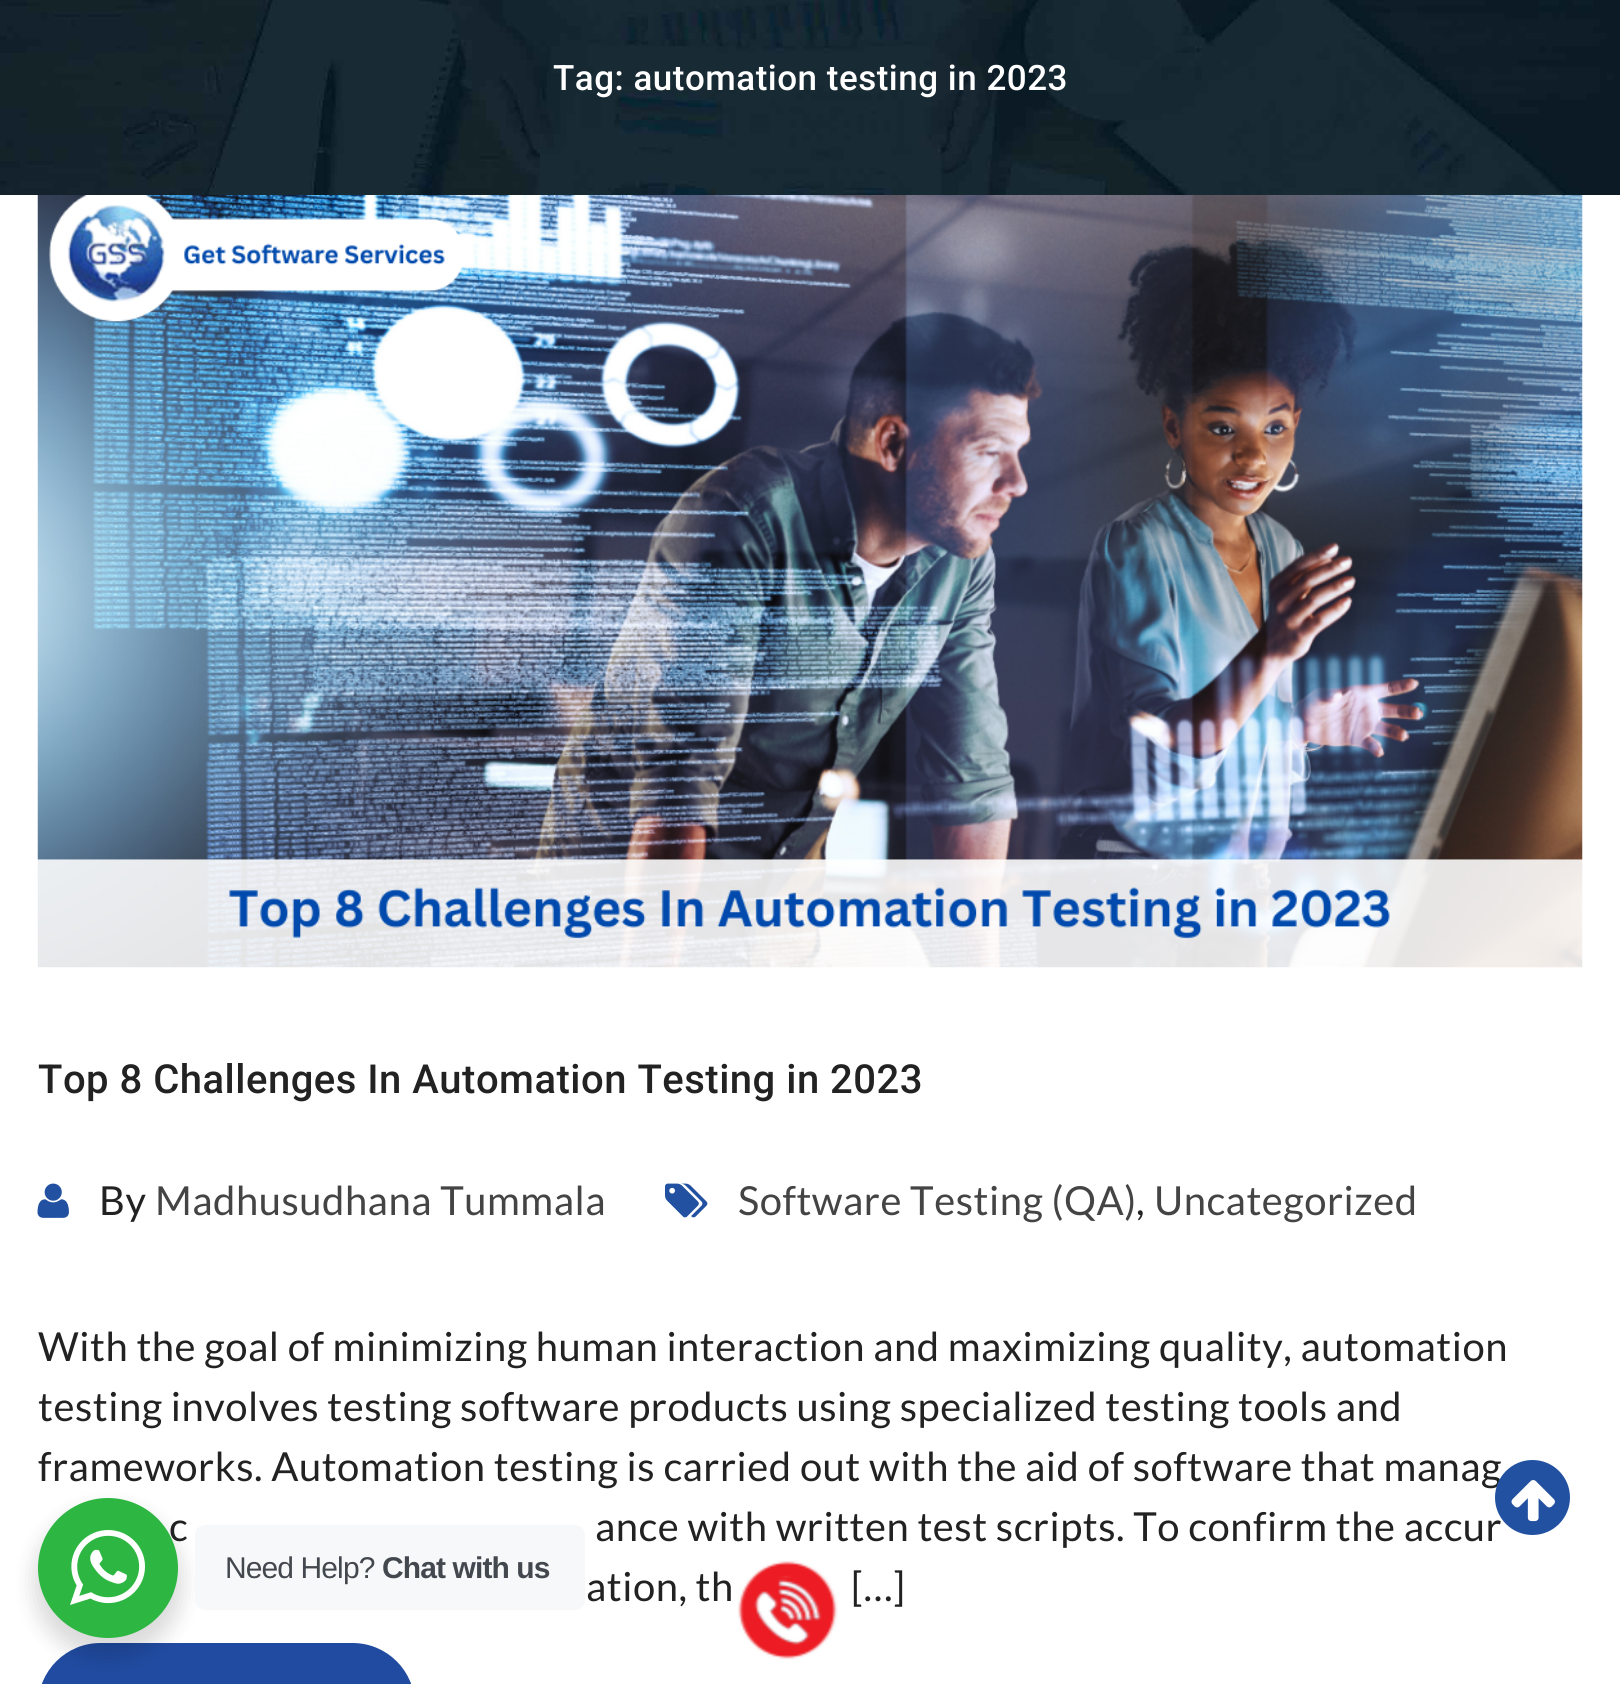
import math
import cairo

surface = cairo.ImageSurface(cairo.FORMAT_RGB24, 1620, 1684)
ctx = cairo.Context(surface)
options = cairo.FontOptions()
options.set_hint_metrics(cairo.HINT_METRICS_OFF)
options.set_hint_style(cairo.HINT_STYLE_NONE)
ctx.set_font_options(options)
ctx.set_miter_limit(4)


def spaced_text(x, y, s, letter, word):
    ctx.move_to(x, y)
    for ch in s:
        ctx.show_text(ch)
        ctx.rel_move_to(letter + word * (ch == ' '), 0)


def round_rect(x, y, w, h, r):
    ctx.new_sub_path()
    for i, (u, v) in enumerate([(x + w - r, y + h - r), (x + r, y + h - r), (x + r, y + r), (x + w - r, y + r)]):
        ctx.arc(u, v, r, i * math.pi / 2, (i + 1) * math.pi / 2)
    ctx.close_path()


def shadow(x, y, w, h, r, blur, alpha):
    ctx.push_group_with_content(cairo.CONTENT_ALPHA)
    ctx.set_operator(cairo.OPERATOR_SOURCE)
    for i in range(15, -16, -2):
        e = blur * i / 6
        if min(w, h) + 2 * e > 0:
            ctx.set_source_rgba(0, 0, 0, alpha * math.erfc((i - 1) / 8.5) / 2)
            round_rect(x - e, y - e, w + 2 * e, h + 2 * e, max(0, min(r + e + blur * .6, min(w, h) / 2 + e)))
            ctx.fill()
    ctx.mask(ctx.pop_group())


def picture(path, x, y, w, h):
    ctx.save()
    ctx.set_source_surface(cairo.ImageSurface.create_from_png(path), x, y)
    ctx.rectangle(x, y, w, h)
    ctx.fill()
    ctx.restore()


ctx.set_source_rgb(1, 1, 1)
ctx.paint()
picture("img1.png", 0, 0, 1620, 195)
ctx.select_font_face("Roboto Medium")
ctx.set_font_size(35)
ctx.set_source_rgb(1, 1, 1)
spaced_text(553, 90, "Tag: automation testing in 2023", 0.5, 0)
picture("img2.png", 37, 195, 1546, 773)
ctx.set_font_size(40)
ctx.set_source_rgb(0.133, 0.133, 0.133)
spaced_text(38, 1093, "Top 8 Challenges In Automation Testing in 2023", 0.5, 0)
picture("img3.png", 37, 1183, 32, 35)
ctx.select_font_face("Lato")
spaced_text(99, 1215, "By", 0.5, 0)
ctx.set_source_rgb(0.267, 0.267, 0.267)
spaced_text(155, 1215, "Madhusudhana Tummala", 0.5, 0)
picture("img4.png", 665, 1183, 43, 35)
spaced_text(738, 1215, "Software Testing (QA)", 0.5, 0)
ctx.set_source_rgb(0.133, 0.133, 0.133)
spaced_text(1136, 1215, ",", 0.5, 0)
ctx.set_source_rgb(0.267, 0.267, 0.267)
spaced_text(1154, 1215, "Uncategorized", 0.5, 0)
ctx.set_source_rgb(0.133, 0.133, 0.133)
spaced_text(38, 1361, "With the goal of minimizing human interaction and maximizing quality, automation", 0.5, 0)
spaced_text(38, 1421, "testing involves testing software products using specialized testing tools and", 0.5, 0)
spaced_text(38, 1481, "frameworks. Automation testing is carried out with the aid of software that manag", 0.5, 0)
spaced_text(169, 1541, "c", 0.5, 0)
spaced_text(595, 1541, "ance with written test scripts. To confirm the accur", 0.5, 0)
spaced_text(586, 1601, "ation, th", 0.5, 0)
spaced_text(851, 1601, "[…]", 0.5, 0)
ctx.set_source_rgb(0.129, 0.294, 0.631)
round_rect(38, 1643, 377, 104, 62.5)
ctx.fill()
ctx.set_source_rgb(0.133, 0.318, 0.631)
ctx.arc(1532.5, 1497.5, 37.5, 0, 2 * math.pi)
ctx.fill()
picture("img5.png", 1511, 1480, 44, 42)
ctx.set_source_rgb(0, 0, 0)
shadow(33, 1508, 150, 150, 75, 10, 0.14)
ctx.set_source_rgb(0.176, 0.718, 0.259)
ctx.arc(108, 1568, 70, 0, 2 * math.pi)
ctx.fill()
picture("img6.png", 70, 1530, 75, 75)
ctx.set_source_rgb(0.961, 0.969, 0.976)
round_rect(195, 1525, 390, 85, 10)
ctx.fill()
ctx.select_font_face("Liberation Sans")
ctx.set_font_size(30)
ctx.set_source_rgb(0.263, 0.278, 0.306)
spaced_text(225, 1578, "Need Help?", -0.9, 0)
ctx.select_font_face("Liberation Sans", cairo.FONT_SLANT_NORMAL, cairo.FONT_WEIGHT_BOLD)
spaced_text(382, 1578, "Chat with us", -0.9, 0)
picture("img7.png", 737, 1560, 101, 100)
surface.write_to_png("page.png")
